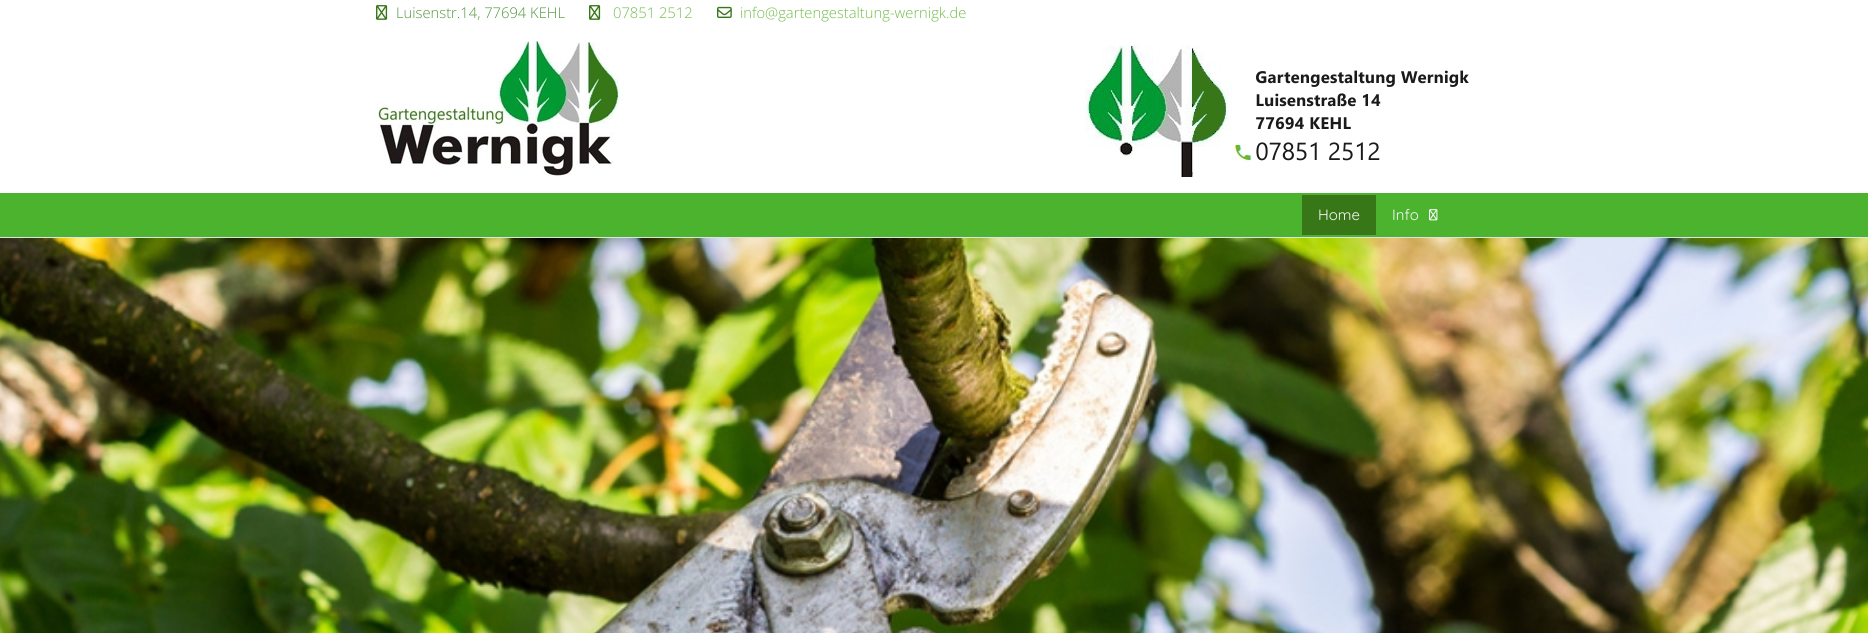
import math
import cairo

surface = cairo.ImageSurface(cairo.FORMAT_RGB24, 1868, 633)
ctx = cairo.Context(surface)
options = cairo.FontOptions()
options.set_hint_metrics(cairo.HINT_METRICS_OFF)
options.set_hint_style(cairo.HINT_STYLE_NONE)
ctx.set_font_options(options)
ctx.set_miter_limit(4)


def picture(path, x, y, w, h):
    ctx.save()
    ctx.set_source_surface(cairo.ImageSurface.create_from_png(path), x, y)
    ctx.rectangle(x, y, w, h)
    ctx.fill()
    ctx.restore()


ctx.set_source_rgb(1, 1, 1)
ctx.paint()
picture("img1.png", 376, 5, 12, 15)
ctx.select_font_face("Open Sans Light")
ctx.set_font_size(14.75)
ctx.set_source_rgb(0.318, 0.588, 0.243)
ctx.move_to(396, 18)
ctx.show_text("Luisenstr.14, 77694 KEHL")
picture("img1.png", 589, 5, 12, 15)
ctx.set_source_rgb(0.447, 0.737, 0.298)
ctx.move_to(613, 18)
ctx.show_text("07851 2512")
picture("img2.png", 717, 6, 15, 12)
ctx.move_to(740, 18)
ctx.show_text("info@gartengestaltung-wernigk.de")
picture("img3.png", 377, 41, 1092, 136)
ctx.set_source_rgb(0.294, 0.702, 0.18)
ctx.rectangle(0, 193, 1868, 44)
ctx.fill()
ctx.set_source_rgb(0.871, 0.886, 0.902)
ctx.rectangle(0, 237, 1868, 1)
ctx.fill()
ctx.set_source_rgb(0.216, 0.467, 0.09)
ctx.rectangle(1302, 195, 74, 40)
ctx.fill()
ctx.select_font_face("Quicksand")
ctx.set_font_size(15)
ctx.set_source_rgb(0.973, 0.976, 0.98)
ctx.move_to(1318, 220)
ctx.show_text("Home")
ctx.move_to(1392, 220)
ctx.show_text("Info")
picture("img4.png", 1429, 209, 9, 12)
picture("img5.png", 0, 238, 1868, 395)
surface.write_to_png("page.png")
